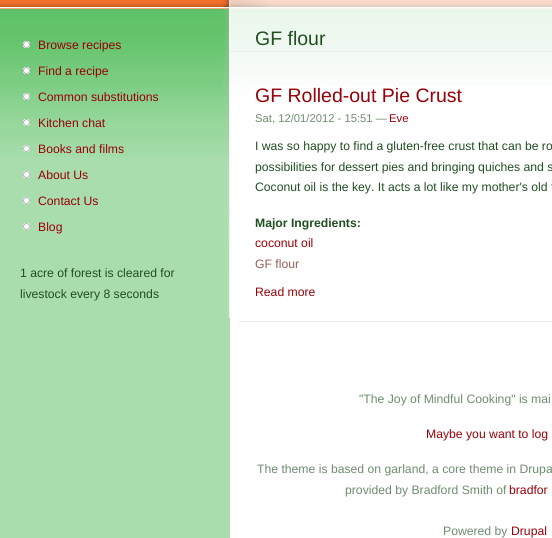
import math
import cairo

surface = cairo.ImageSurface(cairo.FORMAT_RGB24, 552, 538)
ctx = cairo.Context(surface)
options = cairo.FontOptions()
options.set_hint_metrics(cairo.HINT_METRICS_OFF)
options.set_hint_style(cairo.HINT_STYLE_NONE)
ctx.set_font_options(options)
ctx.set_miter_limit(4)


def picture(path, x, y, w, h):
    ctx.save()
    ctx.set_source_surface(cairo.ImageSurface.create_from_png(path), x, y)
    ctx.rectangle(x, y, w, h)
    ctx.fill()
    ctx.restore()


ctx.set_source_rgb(0.663, 0.867, 0.678)
ctx.paint()
picture("img1.png", 0, 0, 223, 157)
picture("img2.png", 23, 41, 7, 7)
ctx.select_font_face("Liberation Sans")
ctx.set_font_size(12.2)
ctx.set_source_rgb(0.6, 0, 0.035)
ctx.move_to(38, 49)
ctx.show_text("Browse recipes")
picture("img3.png", 23, 67, 7, 7)
ctx.move_to(38, 75)
ctx.show_text("Find a recipe")
picture("img4.png", 23, 93, 7, 7)
ctx.move_to(38, 101)
ctx.show_text("Common substitutions")
picture("img5.png", 23, 119, 7, 7)
ctx.move_to(38, 127)
ctx.show_text("Kitchen chat")
picture("img6.png", 23, 145, 7, 7)
ctx.move_to(38, 153)
ctx.show_text("Books and films")
picture("img7.png", 23, 171, 7, 7)
ctx.move_to(38, 179)
ctx.show_text("About Us")
picture("img7.png", 23, 197, 7, 7)
ctx.move_to(38, 205)
ctx.show_text("Contact Us")
picture("img7.png", 23, 223, 7, 7)
ctx.move_to(38, 231)
ctx.show_text("Blog")
ctx.set_source_rgb(0.129, 0.31, 0.133)
ctx.move_to(20, 277)
ctx.show_text("1 acre of forest is cleared for")
ctx.move_to(20, 298)
ctx.show_text("livestock every 8 seconds")
ctx.set_source_rgb(1, 1, 1)
ctx.rectangle(230, 86, 322, 452)
ctx.fill()
picture("img8.png", 268, 0, 284, 86)
picture("img9.png", 223, 0, 45, 318)
ctx.set_source_rgb(0.914, 0.937, 0.918)
ctx.rectangle(229, 51, 323, 1)
ctx.fill()
ctx.set_font_size(19.5)
ctx.set_source_rgb(0.129, 0.31, 0.133)
ctx.move_to(255, 45)
ctx.show_text("GF flour")
ctx.set_source_rgb(0.914, 0.937, 0.918)
ctx.rectangle(239, 321, 313, 1)
ctx.fill()
ctx.set_source_rgb(0.6, 0, 0.035)
ctx.move_to(255, 102)
ctx.show_text("GF Rolled-out Pie Crust")
ctx.set_font_size(11.25)
ctx.set_source_rgb(0.435, 0.549, 0.435)
ctx.move_to(255, 122)
ctx.show_text("Sat, 12/01/2012 - 15:51 —")
ctx.set_source_rgb(0.6, 0, 0.035)
ctx.move_to(389, 122)
ctx.show_text("Eve")
ctx.set_font_size(12.2)
ctx.set_source_rgb(0.129, 0.31, 0.133)
ctx.move_to(255, 150)
ctx.show_text("I was so happy to find a gluten-free crust that can be ro")
ctx.move_to(255, 171)
ctx.show_text("possibilities for dessert pies and bringing quiches and s")
ctx.move_to(255, 191)
ctx.show_text("Coconut oil is the key. It acts a lot like my mother's old f")
ctx.select_font_face("Liberation Sans", cairo.FONT_SLANT_NORMAL, cairo.FONT_WEIGHT_BOLD)
ctx.move_to(255, 227)
ctx.show_text("Major Ingredients:")
ctx.select_font_face("Liberation Sans")
ctx.set_source_rgb(0.6, 0, 0.035)
ctx.move_to(255, 247)
ctx.show_text("coconut oil")
ctx.set_source_rgb(0.592, 0.365, 0.365)
ctx.move_to(255, 268)
ctx.show_text("GF flour")
ctx.set_source_rgb(0.6, 0, 0.035)
ctx.move_to(255, 296)
ctx.show_text("Read more")
ctx.set_source_rgb(0.435, 0.549, 0.435)
ctx.move_to(359, 403)
ctx.show_text("\"The Joy of Mindful Cooking\" is mai")
ctx.set_source_rgb(0.6, 0, 0.035)
ctx.move_to(426, 438)
ctx.show_text("Maybe you want to log")
ctx.set_source_rgb(0.435, 0.549, 0.435)
ctx.move_to(257, 473)
ctx.show_text("The theme is based on garland, a core theme in Drupa")
ctx.move_to(345, 494)
ctx.show_text("provided by Bradford Smith of")
ctx.set_source_rgb(0.6, 0, 0.035)
ctx.move_to(509, 494)
ctx.show_text("bradfor")
ctx.set_source_rgb(0.435, 0.549, 0.435)
ctx.move_to(443, 535)
ctx.show_text("Powered by")
ctx.set_source_rgb(0.6, 0, 0.035)
ctx.move_to(511, 535)
ctx.show_text("Drupal")
surface.write_to_png("page.png")
